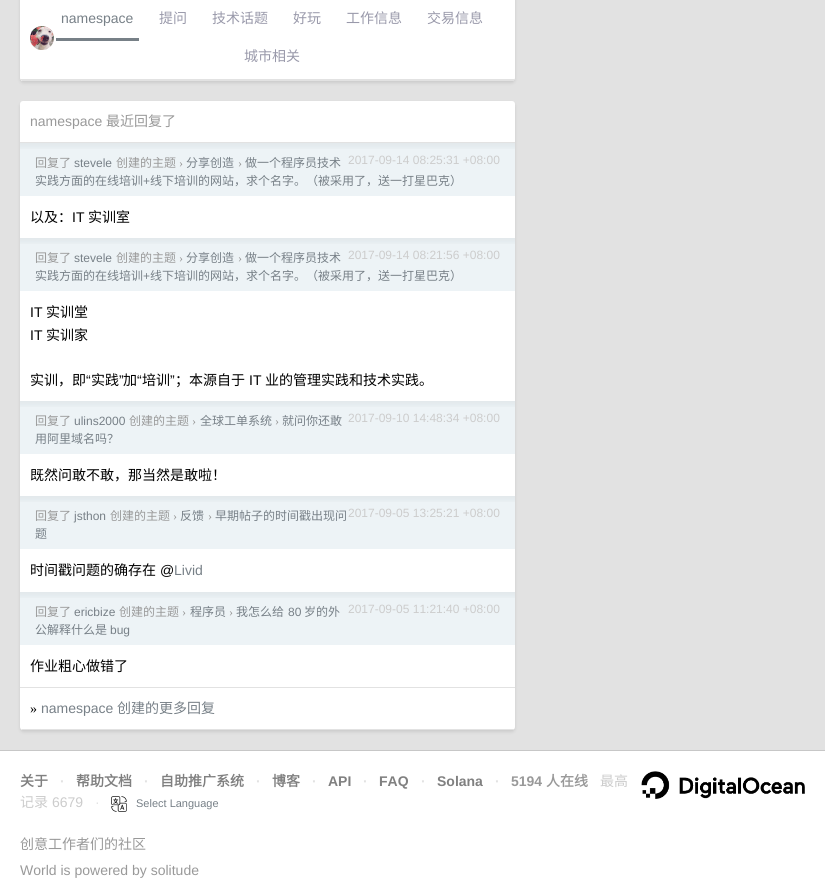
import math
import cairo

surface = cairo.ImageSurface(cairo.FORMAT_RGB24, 825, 886)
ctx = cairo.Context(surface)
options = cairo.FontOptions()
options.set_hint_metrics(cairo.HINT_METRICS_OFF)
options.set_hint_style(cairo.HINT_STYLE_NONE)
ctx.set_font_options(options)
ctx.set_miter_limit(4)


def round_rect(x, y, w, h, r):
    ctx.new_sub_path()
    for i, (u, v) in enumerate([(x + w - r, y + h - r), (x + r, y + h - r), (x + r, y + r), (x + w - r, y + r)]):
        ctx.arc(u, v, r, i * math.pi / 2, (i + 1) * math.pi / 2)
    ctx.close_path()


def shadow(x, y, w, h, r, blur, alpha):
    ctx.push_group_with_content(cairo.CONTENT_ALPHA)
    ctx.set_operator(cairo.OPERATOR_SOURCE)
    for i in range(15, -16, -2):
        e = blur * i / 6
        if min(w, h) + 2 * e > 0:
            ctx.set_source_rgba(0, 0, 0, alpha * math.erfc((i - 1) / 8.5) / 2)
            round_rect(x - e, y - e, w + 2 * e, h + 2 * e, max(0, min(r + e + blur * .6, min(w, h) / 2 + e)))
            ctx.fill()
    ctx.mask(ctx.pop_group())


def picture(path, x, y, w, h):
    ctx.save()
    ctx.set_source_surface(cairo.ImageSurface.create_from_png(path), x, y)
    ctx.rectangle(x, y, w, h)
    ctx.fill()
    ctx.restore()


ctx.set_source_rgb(1, 1, 1)
ctx.paint()
ctx.set_source_rgb(0.886, 0.886, 0.886)
ctx.rectangle(0, 0, 825, 750)
ctx.fill()
ctx.set_source_rgb(0, 0, 0)
shadow(20, -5, 495, 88, 3, 1.5, 0.1)
ctx.set_source_rgb(1, 1, 1)
round_rect(20, -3, 495, 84, 3)
ctx.fill()
ctx.set_source_rgb(0.886, 0.886, 0.886)
ctx.rectangle(22, 80, 492, 1)
ctx.fill()
ctx.rectangle(20, 79, 495, 1)
ctx.fill()
picture("img1.png", 30, 26, 24, 24)
ctx.set_source_rgb(0.467, 0.502, 0.529)
ctx.rectangle(56, 38, 83, 3)
ctx.fill()
ctx.select_font_face("Liberation Sans")
ctx.set_font_size(14)
ctx.move_to(61, 23)
ctx.show_text("namespace")
ctx.select_font_face("Noto Sans CJK SC")
ctx.set_source_rgb(0.6, 0.6, 0.667)
ctx.move_to(159, 23)
ctx.show_text("提问")
ctx.move_to(212, 23)
ctx.show_text("技术话题")
ctx.move_to(293, 23)
ctx.show_text("好玩")
ctx.move_to(346, 23)
ctx.show_text("工作信息")
ctx.move_to(427, 23)
ctx.show_text("交易信息")
ctx.move_to(244, 61)
ctx.show_text("城市相关")
ctx.set_source_rgb(0, 0, 0)
shadow(20, 103, 495, 629, 3, 1.5, 0.1)
ctx.set_source_rgb(1, 1, 1)
round_rect(20, 101, 495, 629, 3)
ctx.fill()
ctx.set_source_rgb(0.886, 0.886, 0.886)
ctx.rectangle(22, 729, 492, 1)
ctx.fill()
ctx.rectangle(20, 142, 495, 1)
ctx.fill()
ctx.select_font_face("Liberation Sans")
ctx.set_source_rgb(0.6, 0.6, 0.6)
ctx.move_to(30, 126)
ctx.show_text("namespace")
ctx.select_font_face("Noto Sans CJK SC")
ctx.move_to(106, 126)
ctx.show_text("最近回复了")
ctx.set_source_rgb(0.929, 0.953, 0.961)
ctx.rectangle(20, 143, 495, 53)
ctx.fill()
picture("img2.png", 20, 143, 495, 6)
ctx.set_font_size(12)
ctx.set_source_rgb(0.6, 0.6, 0.6)
ctx.move_to(35, 167)
ctx.show_text("回复了")
ctx.select_font_face("Liberation Sans")
ctx.set_source_rgb(0.467, 0.502, 0.529)
ctx.move_to(74, 167)
ctx.show_text("stevele")
ctx.select_font_face("Noto Sans CJK SC")
ctx.set_source_rgb(0.6, 0.6, 0.6)
ctx.move_to(116, 167)
ctx.show_text("创建的主题")
ctx.select_font_face("Liberation Serif")
ctx.move_to(179, 167)
ctx.show_text("›")
ctx.select_font_face("Noto Sans CJK SC")
ctx.set_source_rgb(0.467, 0.502, 0.529)
ctx.move_to(186, 167)
ctx.show_text("分享创造")
ctx.select_font_face("Liberation Serif")
ctx.set_source_rgb(0.6, 0.6, 0.6)
ctx.move_to(238, 167)
ctx.show_text("›")
ctx.select_font_face("Noto Sans CJK SC")
ctx.set_source_rgb(0.467, 0.502, 0.529)
ctx.move_to(245, 167)
ctx.show_text("做一个程序员技术")
ctx.select_font_face("Liberation Sans")
ctx.set_source_rgb(0.8, 0.8, 0.8)
ctx.move_to(348, 164)
ctx.show_text("2017-09-14 08:25:31 +08:00")
ctx.select_font_face("Noto Sans CJK SC")
ctx.set_source_rgb(0.467, 0.502, 0.529)
ctx.move_to(35, 185)
ctx.show_text("实践方面的在线培训")
ctx.select_font_face("Liberation Sans")
ctx.move_to(143, 185)
ctx.show_text("+")
ctx.select_font_face("Noto Sans CJK SC")
ctx.move_to(150, 185)
ctx.show_text("线下培训的网站，求个名字。（被采用了，送一打星巴克）")
ctx.set_font_size(14)
ctx.set_source_rgb(0, 0, 0)
ctx.move_to(30, 222)
ctx.show_text("以及：")
ctx.select_font_face("Liberation Sans")
ctx.move_to(72, 222)
ctx.show_text("IT")
ctx.select_font_face("Noto Sans CJK SC")
ctx.move_to(88, 222)
ctx.show_text("实训室")
ctx.set_source_rgb(0.929, 0.953, 0.961)
ctx.rectangle(20, 238, 495, 53)
ctx.fill()
picture("img2.png", 20, 238, 495, 6)
ctx.set_font_size(12)
ctx.set_source_rgb(0.6, 0.6, 0.6)
ctx.move_to(35, 262)
ctx.show_text("回复了")
ctx.select_font_face("Liberation Sans")
ctx.set_source_rgb(0.467, 0.502, 0.529)
ctx.move_to(74, 262)
ctx.show_text("stevele")
ctx.select_font_face("Noto Sans CJK SC")
ctx.set_source_rgb(0.6, 0.6, 0.6)
ctx.move_to(116, 262)
ctx.show_text("创建的主题")
ctx.select_font_face("Liberation Serif")
ctx.move_to(179, 262)
ctx.show_text("›")
ctx.select_font_face("Noto Sans CJK SC")
ctx.set_source_rgb(0.467, 0.502, 0.529)
ctx.move_to(186, 262)
ctx.show_text("分享创造")
ctx.select_font_face("Liberation Serif")
ctx.set_source_rgb(0.6, 0.6, 0.6)
ctx.move_to(238, 262)
ctx.show_text("›")
ctx.select_font_face("Noto Sans CJK SC")
ctx.set_source_rgb(0.467, 0.502, 0.529)
ctx.move_to(245, 262)
ctx.show_text("做一个程序员技术")
ctx.select_font_face("Liberation Sans")
ctx.set_source_rgb(0.8, 0.8, 0.8)
ctx.move_to(348, 259)
ctx.show_text("2017-09-14 08:21:56 +08:00")
ctx.select_font_face("Noto Sans CJK SC")
ctx.set_source_rgb(0.467, 0.502, 0.529)
ctx.move_to(35, 280)
ctx.show_text("实践方面的在线培训")
ctx.select_font_face("Liberation Sans")
ctx.move_to(143, 280)
ctx.show_text("+")
ctx.select_font_face("Noto Sans CJK SC")
ctx.move_to(150, 280)
ctx.show_text("线下培训的网站，求个名字。（被采用了，送一打星巴克）")
ctx.select_font_face("Liberation Sans")
ctx.set_font_size(14)
ctx.set_source_rgb(0, 0, 0)
ctx.move_to(30, 317)
ctx.show_text("IT")
ctx.select_font_face("Noto Sans CJK SC")
ctx.move_to(46, 317)
ctx.show_text("实训堂")
ctx.select_font_face("Liberation Sans")
ctx.move_to(30, 340)
ctx.show_text("IT")
ctx.select_font_face("Noto Sans CJK SC")
ctx.move_to(46, 340)
ctx.show_text("实训家")
ctx.move_to(30, 385)
ctx.show_text("实训，即")
ctx.select_font_face("Liberation Sans")
ctx.move_to(86, 385)
ctx.show_text("“")
ctx.select_font_face("Noto Sans CJK SC")
ctx.move_to(91, 385)
ctx.show_text("实践")
ctx.select_font_face("Liberation Sans")
ctx.move_to(119, 385)
ctx.show_text("”")
ctx.select_font_face("Noto Sans CJK SC")
ctx.move_to(123, 385)
ctx.show_text("加")
ctx.select_font_face("Liberation Sans")
ctx.move_to(137, 385)
ctx.show_text("“")
ctx.select_font_face("Noto Sans CJK SC")
ctx.move_to(142, 385)
ctx.show_text("培训")
ctx.select_font_face("Liberation Sans")
ctx.move_to(170, 385)
ctx.show_text("”")
ctx.select_font_face("Noto Sans CJK SC")
ctx.move_to(175, 385)
ctx.show_text("；本源自于")
ctx.select_font_face("Liberation Sans")
ctx.move_to(249, 385)
ctx.show_text("IT")
ctx.select_font_face("Noto Sans CJK SC")
ctx.move_to(265, 385)
ctx.show_text("业的管理实践和技术实践。")
ctx.set_source_rgb(0.929, 0.953, 0.961)
ctx.rectangle(20, 401, 495, 53)
ctx.fill()
picture("img2.png", 20, 401, 495, 6)
ctx.set_font_size(12)
ctx.set_source_rgb(0.6, 0.6, 0.6)
ctx.move_to(35, 425)
ctx.show_text("回复了")
ctx.select_font_face("Liberation Sans")
ctx.set_source_rgb(0.467, 0.502, 0.529)
ctx.move_to(74, 425)
ctx.show_text("ulins2000")
ctx.select_font_face("Noto Sans CJK SC")
ctx.set_source_rgb(0.6, 0.6, 0.6)
ctx.move_to(129, 425)
ctx.show_text("创建的主题")
ctx.select_font_face("Liberation Serif")
ctx.move_to(192, 425)
ctx.show_text("›")
ctx.select_font_face("Noto Sans CJK SC")
ctx.set_source_rgb(0.467, 0.502, 0.529)
ctx.move_to(200, 425)
ctx.show_text("全球工单系统")
ctx.select_font_face("Liberation Serif")
ctx.set_source_rgb(0.6, 0.6, 0.6)
ctx.move_to(275, 425)
ctx.show_text("›")
ctx.select_font_face("Noto Sans CJK SC")
ctx.set_source_rgb(0.467, 0.502, 0.529)
ctx.move_to(282, 425)
ctx.show_text("就问你还敢")
ctx.select_font_face("Liberation Sans")
ctx.set_source_rgb(0.8, 0.8, 0.8)
ctx.move_to(348, 422)
ctx.show_text("2017-09-10 14:48:34 +08:00")
ctx.select_font_face("Noto Sans CJK SC")
ctx.set_source_rgb(0.467, 0.502, 0.529)
ctx.move_to(35, 443)
ctx.show_text("用阿里域名吗？")
ctx.set_font_size(14)
ctx.set_source_rgb(0, 0, 0)
ctx.move_to(30, 480)
ctx.show_text("既然问敢不敢，那当然是敢啦！")
ctx.set_source_rgb(0.929, 0.953, 0.961)
ctx.rectangle(20, 496, 495, 53)
ctx.fill()
picture("img2.png", 20, 496, 495, 6)
ctx.set_font_size(12)
ctx.set_source_rgb(0.6, 0.6, 0.6)
ctx.move_to(35, 520)
ctx.show_text("回复了")
ctx.select_font_face("Liberation Sans")
ctx.set_source_rgb(0.467, 0.502, 0.529)
ctx.move_to(74, 520)
ctx.show_text("jsthon")
ctx.select_font_face("Noto Sans CJK SC")
ctx.set_source_rgb(0.6, 0.6, 0.6)
ctx.move_to(110, 520)
ctx.show_text("创建的主题")
ctx.select_font_face("Liberation Serif")
ctx.move_to(173, 520)
ctx.show_text("›")
ctx.select_font_face("Noto Sans CJK SC")
ctx.set_source_rgb(0.467, 0.502, 0.529)
ctx.move_to(180, 520)
ctx.show_text("反馈")
ctx.select_font_face("Liberation Serif")
ctx.set_source_rgb(0.6, 0.6, 0.6)
ctx.move_to(208, 520)
ctx.show_text("›")
ctx.select_font_face("Noto Sans CJK SC")
ctx.set_source_rgb(0.467, 0.502, 0.529)
ctx.move_to(215, 520)
ctx.show_text("早期帖子的时间戳出现问")
ctx.select_font_face("Liberation Sans")
ctx.set_source_rgb(0.8, 0.8, 0.8)
ctx.move_to(348, 517)
ctx.show_text("2017-09-05 13:25:21 +08:00")
ctx.select_font_face("Noto Sans CJK SC")
ctx.set_source_rgb(0.467, 0.502, 0.529)
ctx.move_to(35, 538)
ctx.show_text("题")
ctx.set_font_size(14)
ctx.set_source_rgb(0, 0, 0)
ctx.move_to(30, 575)
ctx.show_text("时间戳问题的确存在")
ctx.select_font_face("Liberation Sans")
ctx.move_to(160, 575)
ctx.show_text("@")
ctx.set_source_rgb(0.467, 0.502, 0.529)
ctx.move_to(174, 575)
ctx.show_text("Livid")
ctx.set_source_rgb(0.929, 0.953, 0.961)
ctx.rectangle(20, 592, 495, 53)
ctx.fill()
picture("img2.png", 20, 592, 495, 6)
ctx.select_font_face("Noto Sans CJK SC")
ctx.set_font_size(12)
ctx.set_source_rgb(0.6, 0.6, 0.6)
ctx.move_to(35, 616)
ctx.show_text("回复了")
ctx.select_font_face("Liberation Sans")
ctx.set_source_rgb(0.467, 0.502, 0.529)
ctx.move_to(74, 616)
ctx.show_text("ericbize")
ctx.select_font_face("Noto Sans CJK SC")
ctx.set_source_rgb(0.6, 0.6, 0.6)
ctx.move_to(119, 616)
ctx.show_text("创建的主题")
ctx.select_font_face("Liberation Serif")
ctx.move_to(182, 616)
ctx.show_text("›")
ctx.select_font_face("Noto Sans CJK SC")
ctx.set_source_rgb(0.467, 0.502, 0.529)
ctx.move_to(190, 616)
ctx.show_text("程序员")
ctx.select_font_face("Liberation Serif")
ctx.set_source_rgb(0.6, 0.6, 0.6)
ctx.move_to(229, 616)
ctx.show_text("›")
ctx.select_font_face("Noto Sans CJK SC")
ctx.set_source_rgb(0.467, 0.502, 0.529)
ctx.move_to(236, 616)
ctx.show_text("我怎么给")
ctx.select_font_face("Liberation Sans")
ctx.move_to(288, 616)
ctx.show_text("80")
ctx.select_font_face("Noto Sans CJK SC")
ctx.move_to(304, 616)
ctx.show_text("岁的外")
ctx.select_font_face("Liberation Sans")
ctx.set_source_rgb(0.8, 0.8, 0.8)
ctx.move_to(348, 613)
ctx.show_text("2017-09-05 11:21:40 +08:00")
ctx.select_font_face("Noto Sans CJK SC")
ctx.set_source_rgb(0.467, 0.502, 0.529)
ctx.move_to(35, 634)
ctx.show_text("公解释什么是")
ctx.select_font_face("Liberation Sans")
ctx.move_to(110, 634)
ctx.show_text("bug")
ctx.set_source_rgb(0.886, 0.886, 0.886)
ctx.rectangle(20, 687, 495, 1)
ctx.fill()
ctx.select_font_face("Noto Sans CJK SC")
ctx.set_font_size(14)
ctx.set_source_rgb(0, 0, 0)
ctx.move_to(30, 671)
ctx.show_text("作业粗心做错了")
ctx.select_font_face("Liberation Serif")
ctx.move_to(30, 713)
ctx.show_text("»")
ctx.select_font_face("Liberation Sans")
ctx.set_source_rgb(0.467, 0.502, 0.529)
ctx.move_to(41, 713)
ctx.show_text("namespace")
ctx.select_font_face("Noto Sans CJK SC")
ctx.move_to(117, 713)
ctx.show_text("创建的更多回复")
ctx.set_source_rgb(0.78, 0.78, 0.78)
ctx.rectangle(0, 750, 825, 1)
ctx.fill()
ctx.select_font_face("Noto Sans CJK SC", cairo.FONT_SLANT_NORMAL, cairo.FONT_WEIGHT_BOLD)
ctx.set_source_rgb(0.502, 0.502, 0.502)
ctx.move_to(20, 786)
ctx.show_text("关于")
ctx.select_font_face("Liberation Sans", cairo.FONT_SLANT_NORMAL, cairo.FONT_WEIGHT_BOLD)
ctx.set_source_rgb(0.886, 0.886, 0.886)
ctx.move_to(60, 786)
ctx.show_text("·")
ctx.select_font_face("Noto Sans CJK SC", cairo.FONT_SLANT_NORMAL, cairo.FONT_WEIGHT_BOLD)
ctx.set_source_rgb(0.502, 0.502, 0.502)
ctx.move_to(76, 786)
ctx.show_text("帮助文档")
ctx.select_font_face("Liberation Sans", cairo.FONT_SLANT_NORMAL, cairo.FONT_WEIGHT_BOLD)
ctx.set_source_rgb(0.886, 0.886, 0.886)
ctx.move_to(144, 786)
ctx.show_text("·")
ctx.select_font_face("Noto Sans CJK SC", cairo.FONT_SLANT_NORMAL, cairo.FONT_WEIGHT_BOLD)
ctx.set_source_rgb(0.502, 0.502, 0.502)
ctx.move_to(160, 786)
ctx.show_text("自助推广系统")
ctx.select_font_face("Liberation Sans", cairo.FONT_SLANT_NORMAL, cairo.FONT_WEIGHT_BOLD)
ctx.set_source_rgb(0.886, 0.886, 0.886)
ctx.move_to(256, 786)
ctx.show_text("·")
ctx.select_font_face("Noto Sans CJK SC", cairo.FONT_SLANT_NORMAL, cairo.FONT_WEIGHT_BOLD)
ctx.set_source_rgb(0.502, 0.502, 0.502)
ctx.move_to(272, 786)
ctx.show_text("博客")
ctx.select_font_face("Liberation Sans", cairo.FONT_SLANT_NORMAL, cairo.FONT_WEIGHT_BOLD)
ctx.set_source_rgb(0.886, 0.886, 0.886)
ctx.move_to(312, 786)
ctx.show_text("·")
ctx.set_source_rgb(0.502, 0.502, 0.502)
ctx.move_to(328, 786)
ctx.show_text("API")
ctx.set_source_rgb(0.886, 0.886, 0.886)
ctx.move_to(363, 786)
ctx.show_text("·")
ctx.set_source_rgb(0.502, 0.502, 0.502)
ctx.move_to(379, 786)
ctx.show_text("FAQ")
ctx.set_source_rgb(0.886, 0.886, 0.886)
ctx.move_to(421, 786)
ctx.show_text("·")
ctx.set_source_rgb(0.502, 0.502, 0.502)
ctx.move_to(437, 786)
ctx.show_text("Solana")
ctx.set_source_rgb(0.886, 0.886, 0.886)
ctx.move_to(495, 786)
ctx.show_text("·")
ctx.set_source_rgb(0.6, 0.6, 0.6)
ctx.move_to(511, 786)
ctx.show_text("5194")
ctx.select_font_face("Noto Sans CJK SC", cairo.FONT_SLANT_NORMAL, cairo.FONT_WEIGHT_BOLD)
ctx.move_to(546, 786)
ctx.show_text("人在线")
ctx.select_font_face("Noto Sans CJK SC")
ctx.set_source_rgb(0.8, 0.8, 0.8)
ctx.move_to(600, 786)
ctx.show_text("最高")
picture("img3.png", 641, 771, 164, 28)
ctx.move_to(20, 807)
ctx.show_text("记录")
ctx.select_font_face("Liberation Sans")
ctx.move_to(52, 807)
ctx.show_text("6679")
ctx.set_source_rgb(0.886, 0.886, 0.886)
ctx.move_to(95, 807)
ctx.show_text("·")
picture("img4.png", 111, 796, 16, 16)
ctx.set_font_size(11)
ctx.set_source_rgb(0.467, 0.502, 0.529)
ctx.move_to(136, 807)
ctx.show_text("Select Language")
ctx.select_font_face("Noto Sans CJK SC")
ctx.set_font_size(14)
ctx.set_source_rgb(0.6, 0.6, 0.6)
ctx.move_to(20, 849)
ctx.show_text("创意工作者们的社区")
ctx.select_font_face("Liberation Sans")
ctx.move_to(20, 875)
ctx.show_text("World is powered by solitude")
surface.write_to_png("page.png")
